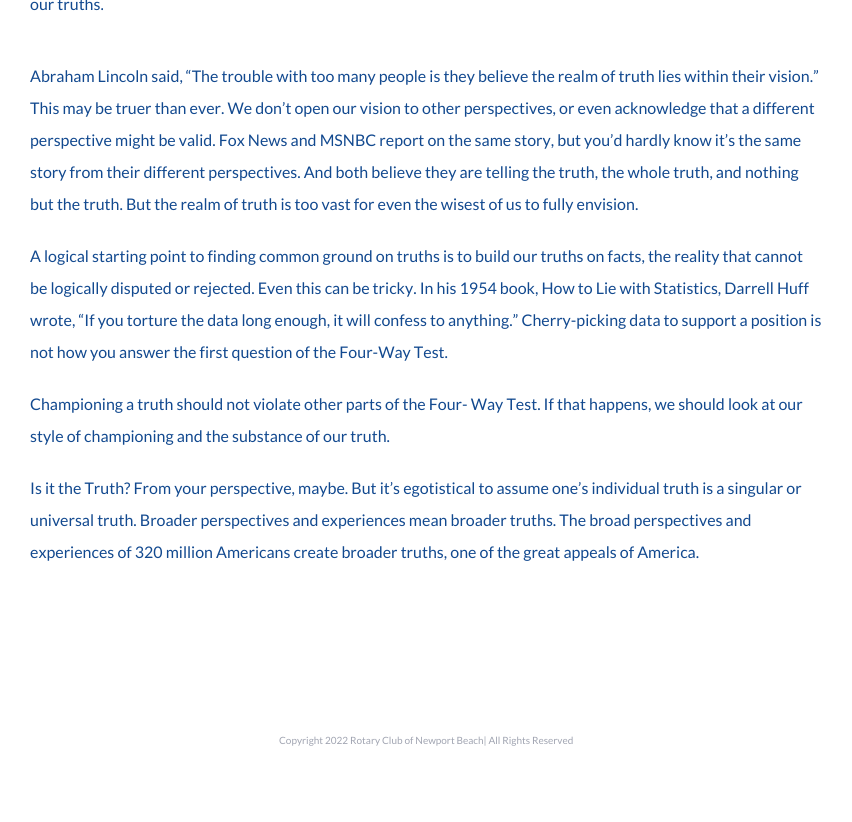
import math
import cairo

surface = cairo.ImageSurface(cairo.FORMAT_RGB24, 852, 822)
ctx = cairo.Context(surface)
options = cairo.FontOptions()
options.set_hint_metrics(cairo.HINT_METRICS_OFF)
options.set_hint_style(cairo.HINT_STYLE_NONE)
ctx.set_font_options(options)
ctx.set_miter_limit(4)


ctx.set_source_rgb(1, 1, 1)
ctx.paint()
ctx.select_font_face("Lato")
ctx.set_font_size(16)
ctx.set_source_rgb(0.071, 0.286, 0.561)
ctx.move_to(30, 10)
ctx.show_text("our truths.")
ctx.move_to(30, 82)
ctx.show_text("Abraham Lincoln said, “The trouble with too many people is they believe the realm of truth lies within their vision.”")
ctx.move_to(30, 114)
ctx.show_text("This may be truer than ever. We don’t open our vision to other perspectives, or even acknowledge that a different")
ctx.move_to(30, 146)
ctx.show_text("perspective might be valid. Fox News and MSNBC report on the same story, but you’d hardly know it’s the same")
ctx.move_to(30, 178)
ctx.show_text("story from their different perspectives. And both believe they are telling the truth, the whole truth, and nothing")
ctx.move_to(30, 210)
ctx.show_text("but the truth. But the realm of truth is too vast for even the wisest of us to fully envision.")
ctx.move_to(30, 262)
ctx.show_text("A logical starting point to finding common ground on truths is to build our truths on facts, the reality that cannot")
ctx.move_to(30, 294)
ctx.show_text("be logically disputed or rejected. Even this can be tricky. In his 1954 book, How to Lie with Statistics, Darrell Huff")
ctx.move_to(30, 326)
ctx.show_text("wrote, “If you torture the data long enough, it will confess to anything.” Cherry-picking data to support a position is")
ctx.move_to(30, 358)
ctx.show_text("not how you answer the first question of the Four-Way Test.")
ctx.move_to(30, 410)
ctx.show_text("Championing a truth should not violate other parts of the Four- Way Test. If that happens, we should look at our")
ctx.move_to(30, 442)
ctx.show_text("style of championing and the substance of our truth.")
ctx.move_to(30, 494)
ctx.show_text("Is it the Truth? From your perspective, maybe. But it’s egotistical to assume one’s individual truth is a singular or")
ctx.move_to(30, 526)
ctx.show_text("universal truth. Broader perspectives and experiences mean broader truths. The broad perspectives and")
ctx.move_to(30, 558)
ctx.show_text("experiences of 320 million Americans create broader truths, one of the great appeals of America.")
ctx.set_font_size(10)
ctx.set_source_rgb(0.627, 0.643, 0.694)
ctx.move_to(279, 744)
ctx.show_text("Copyright 2022 Rotary Club of Newport Beach| All Rights Reserved")
surface.write_to_png("page.png")
